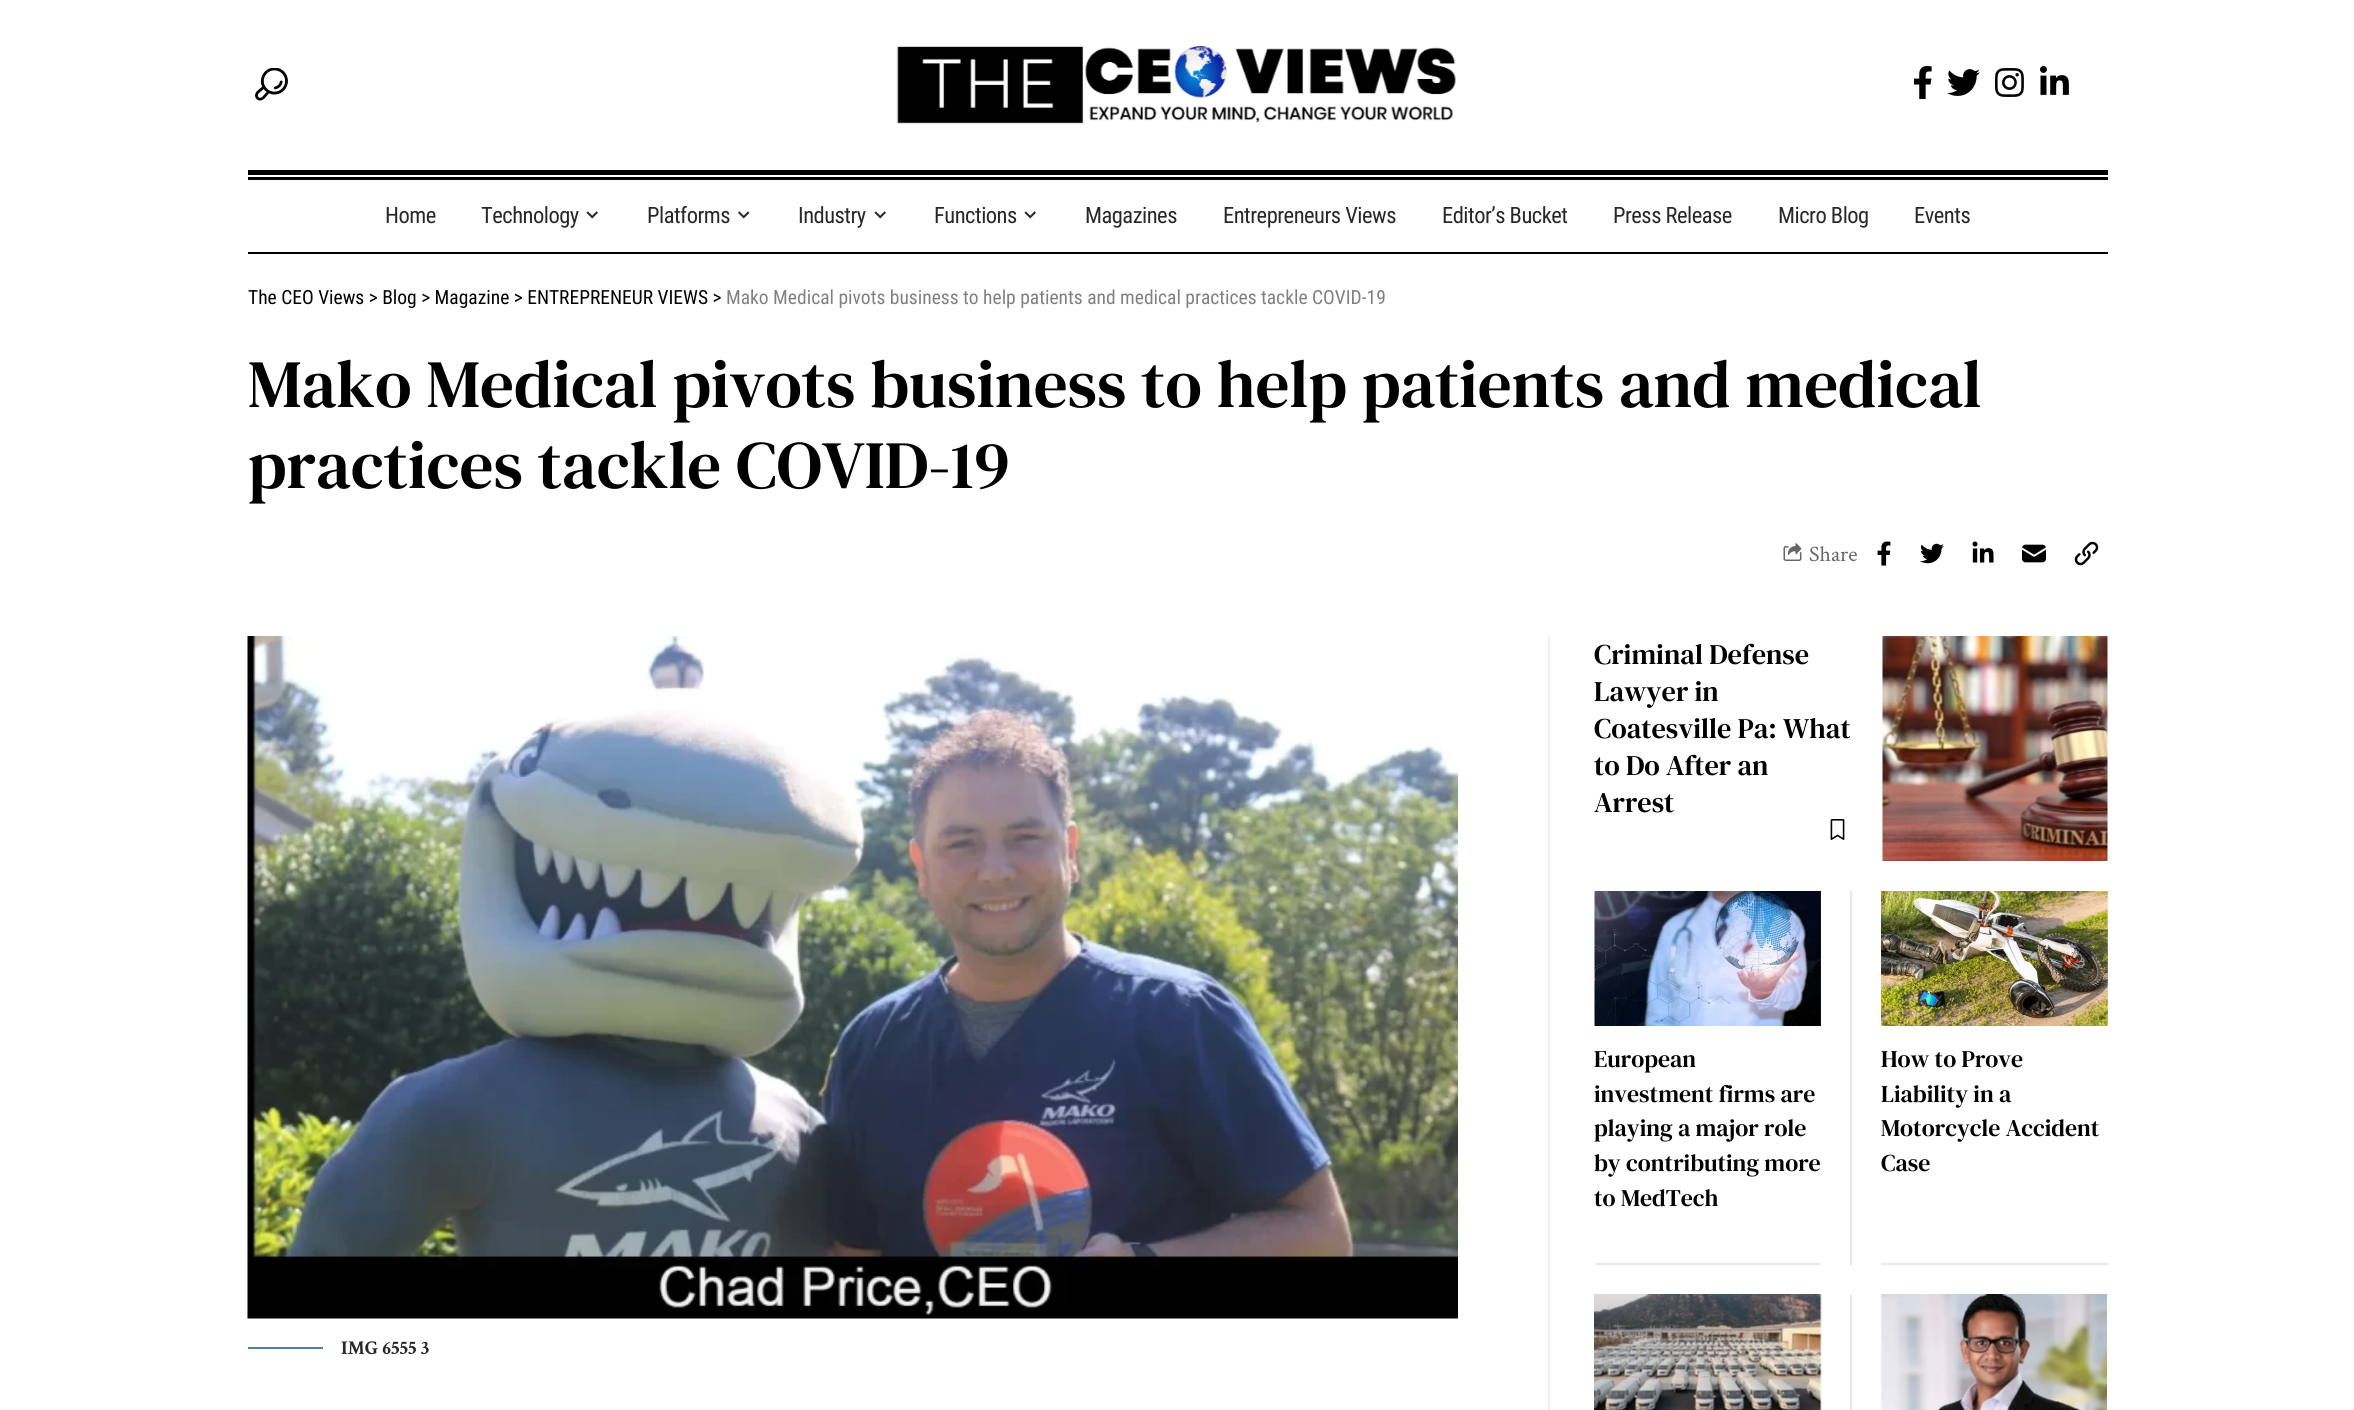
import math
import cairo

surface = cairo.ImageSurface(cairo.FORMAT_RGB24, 2354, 1410)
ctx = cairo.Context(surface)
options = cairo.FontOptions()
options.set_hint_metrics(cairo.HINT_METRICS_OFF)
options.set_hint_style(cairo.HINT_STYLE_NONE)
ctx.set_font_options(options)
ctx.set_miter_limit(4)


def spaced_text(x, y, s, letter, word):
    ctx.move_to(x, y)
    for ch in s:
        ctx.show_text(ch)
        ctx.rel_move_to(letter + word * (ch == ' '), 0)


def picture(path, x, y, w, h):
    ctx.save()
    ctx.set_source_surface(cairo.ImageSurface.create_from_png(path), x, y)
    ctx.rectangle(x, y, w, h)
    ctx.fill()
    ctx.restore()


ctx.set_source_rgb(1, 1, 1)
ctx.paint()
picture("img1.png", 255, 68, 33, 33)
picture("img2.png", 896, 45, 560, 79)
picture("img3.png", 1914, 66, 18, 33)
picture("img4.png", 1947, 69, 33, 27)
picture("img5.png", 1995, 68, 29, 29)
picture("img6.png", 2040, 66, 29, 29)
ctx.set_source_rgb(0, 0, 0)
ctx.rectangle(248, 170, 1860, 5)
ctx.fill()
ctx.rectangle(248, 177, 1860, 3)
ctx.fill()
ctx.rectangle(248, 252, 1860, 2)
ctx.fill()
ctx.select_font_face("Roboto Condensed")
ctx.set_font_size(22.5)
ctx.set_source_rgb(0.157, 0.157, 0.157)
spaced_text(385, 223, "Home", -0.5, 0)
spaced_text(481, 223, "Technology", -0.5, 0)
picture("img7.png", 586, 211, 12, 8)
spaced_text(647, 223, "Platforms", -0.5, 0)
picture("img8.png", 738, 211, 12, 8)
spaced_text(798, 223, "Industry", -0.5, 0)
picture("img7.png", 874, 211, 12, 8)
spaced_text(934, 223, "Functions", -0.5, 0)
picture("img7.png", 1024, 211, 12, 8)
spaced_text(1085, 223, "Magazines", -0.5, 0)
spaced_text(1223, 223, "Entrepreneurs Views", -0.5, 0)
spaced_text(1442, 223, "Editor’s Bucket", -0.5, 0)
spaced_text(1613, 223, "Press Release", -0.5, 0)
spaced_text(1778, 223, "Micro Blog", -0.5, 0)
spaced_text(1914, 223, "Events", -0.5, 0)
ctx.set_font_size(19.5)
ctx.set_source_rgb(0, 0, 0)
ctx.move_to(248, 304)
ctx.show_text("The CEO Views > Blog > Magazine > ENTREPRENEUR VIEWS >")
ctx.set_source_rgb(0.502, 0.502, 0.502)
ctx.move_to(726, 304)
ctx.show_text("Mako Medical pivots business to help patients and medical practices tackle COVID-19")
ctx.select_font_face("DM Serif Text")
ctx.set_font_size(67.5)
ctx.set_source_rgb(0, 0, 0)
ctx.move_to(248, 407)
ctx.show_text("Mako Medical pivots business to help patients and medical")
ctx.move_to(248, 488)
ctx.show_text("practices tackle COVID-19")
picture("img9.png", 1783, 543, 19, 18)
ctx.select_font_face("Crimson Text")
ctx.set_font_size(22)
ctx.set_source_rgb(0.4, 0.4, 0.4)
ctx.move_to(1809, 561)
ctx.show_text("Share")
picture("img10.png", 1877, 541, 14, 25)
picture("img11.png", 1920, 543, 24, 21)
picture("img12.png", 1972, 541, 22, 22)
picture("img13.png", 2022, 544, 24, 19)
picture("img14.png", 2074, 541, 25, 25)
ctx.set_source_rgb(0.937, 0.937, 0.937)
ctx.rectangle(1548, 636, 2, 774)
ctx.fill()
ctx.select_font_face("DM Serif Text")
ctx.set_font_size(28.5)
ctx.set_source_rgb(0, 0, 0)
ctx.move_to(1594, 664)
ctx.show_text("Criminal Defense")
ctx.move_to(1594, 701)
ctx.show_text("Lawyer in")
ctx.move_to(1594, 738)
ctx.show_text("Coatesville Pa: What")
ctx.move_to(1594, 775)
ctx.show_text("to Do After an")
ctx.move_to(1594, 812)
ctx.show_text("Arrest")
picture("img15.png", 1830, 819, 15, 21)
picture("img16.png", 1882, 636, 226, 225)
picture("img17.png", 1594, 891, 227, 135)
ctx.set_source_rgb(0.906, 0.906, 0.906)
ctx.rectangle(1850, 891, 2, 374)
ctx.fill()
ctx.set_font_size(24)
ctx.set_source_rgb(0, 0, 0)
ctx.move_to(1594, 1067)
ctx.show_text("European")
ctx.move_to(1594, 1102)
ctx.show_text("investment firms are")
ctx.move_to(1594, 1136)
ctx.show_text("playing a major role")
ctx.move_to(1594, 1171)
ctx.show_text("by contributing more")
ctx.move_to(1594, 1206)
ctx.show_text("to MedTech")
ctx.set_source_rgb(0.906, 0.906, 0.906)
ctx.rectangle(1595, 1263, 226, 2)
ctx.fill()
picture("img18.png", 1881, 891, 227, 135)
ctx.set_source_rgb(0, 0, 0)
ctx.move_to(1881, 1067)
ctx.show_text("How to Prove")
ctx.move_to(1881, 1102)
ctx.show_text("Liability in a")
ctx.move_to(1881, 1136)
ctx.show_text("Motorcycle Accident")
ctx.move_to(1881, 1171)
ctx.show_text("Case")
ctx.set_source_rgb(0.906, 0.906, 0.906)
ctx.rectangle(1881, 1263, 227, 2)
ctx.fill()
picture("img19.png", 1594, 1294, 228, 116)
ctx.rectangle(1850, 1295, 2, 115)
ctx.fill()
picture("img20.png", 1880, 1294, 227, 116)
picture("img21.png", 247, 636, 1211, 683)
ctx.set_source_rgb(0.322, 0.502, 0.627)
ctx.rectangle(248, 1347, 75, 2)
ctx.fill()
ctx.select_font_face("Crimson Text", cairo.FONT_SLANT_NORMAL, cairo.FONT_WEIGHT_BOLD)
ctx.set_font_size(19.5)
ctx.set_source_rgb(0.157, 0.157, 0.157)
ctx.move_to(341, 1354)
ctx.show_text("IMG 6555 3")
surface.write_to_png("page.png")
